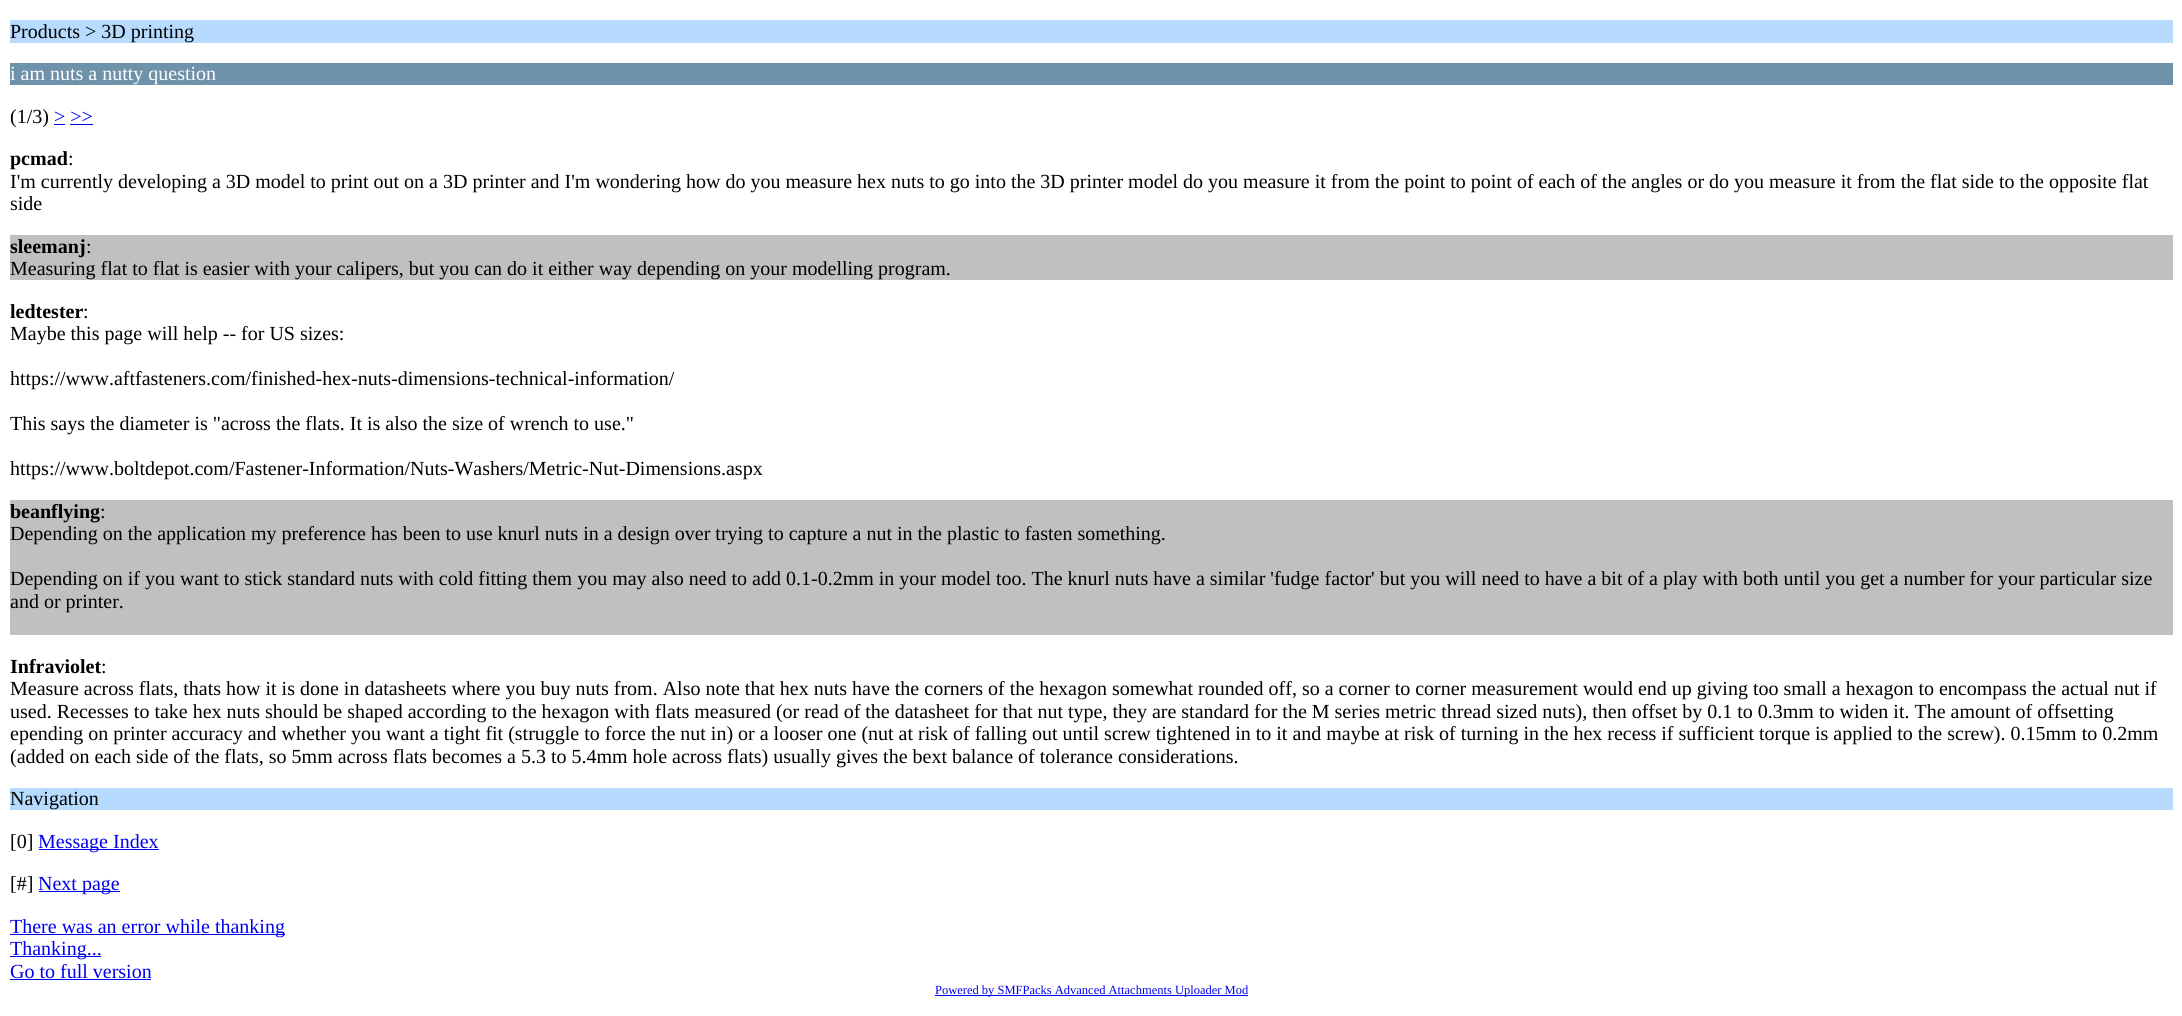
import math
import cairo

surface = cairo.ImageSurface(cairo.FORMAT_RGB24, 2182, 1016)
ctx = cairo.Context(surface)
options = cairo.FontOptions()
options.set_hint_metrics(cairo.HINT_METRICS_OFF)
options.set_hint_style(cairo.HINT_STYLE_NONE)
ctx.set_font_options(options)
ctx.set_miter_limit(4)


ctx.set_source_rgb(1, 1, 1)
ctx.paint()
ctx.set_source_rgb(0.714, 0.859, 1)
ctx.rectangle(10, 20, 2163, 23)
ctx.fill()
ctx.select_font_face("Liberation Serif")
ctx.set_font_size(20)
ctx.set_source_rgb(0, 0, 0)
ctx.move_to(10, 38)
ctx.show_text("Products > 3D printing")
ctx.set_source_rgb(0.427, 0.573, 0.667)
ctx.rectangle(10, 63, 2163, 22)
ctx.fill()
ctx.set_source_rgb(1, 1, 1)
ctx.move_to(10, 80)
ctx.show_text("i am nuts a nutty question")
ctx.set_source_rgb(0, 0, 0)
ctx.move_to(10, 123)
ctx.show_text("(1/3)")
ctx.set_source_rgb(0, 0, 0.933)
ctx.move_to(54, 123)
ctx.show_text("> >>")
ctx.rectangle(54, 124, 11, 1)
ctx.fill()
ctx.rectangle(70, 124, 23, 1)
ctx.fill()
ctx.select_font_face("Liberation Serif", cairo.FONT_SLANT_NORMAL, cairo.FONT_WEIGHT_BOLD)
ctx.set_source_rgb(0, 0, 0)
ctx.move_to(10, 165)
ctx.show_text("pcmad")
ctx.select_font_face("Liberation Serif")
ctx.move_to(68, 165)
ctx.show_text(":")
ctx.move_to(10, 188)
ctx.show_text("I'm currently developing a 3D model to print out on a 3D printer and I'm wondering how do you measure hex nuts to go into the 3D printer model do you measure it from the point to point of each of the angles or do you measure it from the flat side to the opposite flat")
ctx.move_to(10, 210)
ctx.show_text("side")
ctx.set_source_rgb(0.753, 0.753, 0.753)
ctx.rectangle(10, 235, 2163, 45)
ctx.fill()
ctx.select_font_face("Liberation Serif", cairo.FONT_SLANT_NORMAL, cairo.FONT_WEIGHT_BOLD)
ctx.set_source_rgb(0, 0, 0)
ctx.move_to(10, 253)
ctx.show_text("sleemanj")
ctx.select_font_face("Liberation Serif")
ctx.move_to(86, 253)
ctx.show_text(":")
ctx.move_to(10, 275)
ctx.show_text("Measuring flat to flat is easier with your calipers, but you can do it either way depending on your modelling program.")
ctx.select_font_face("Liberation Serif", cairo.FONT_SLANT_NORMAL, cairo.FONT_WEIGHT_BOLD)
ctx.move_to(10, 318)
ctx.show_text("ledtester")
ctx.select_font_face("Liberation Serif")
ctx.move_to(83, 318)
ctx.show_text(":")
ctx.move_to(10, 340)
ctx.show_text("Maybe this page will help -- for US sizes:")
ctx.move_to(10, 385)
ctx.show_text("https://www.aftfasteners.com/finished-hex-nuts-dimensions-technical-information/")
ctx.move_to(10, 430)
ctx.show_text("This says the diameter is \"across the flats. It is also the size of wrench to use.\"")
ctx.move_to(10, 475)
ctx.show_text("https://www.boltdepot.com/Fastener-Information/Nuts-Washers/Metric-Nut-Dimensions.aspx")
ctx.set_source_rgb(0.753, 0.753, 0.753)
ctx.rectangle(10, 500, 2163, 135)
ctx.fill()
ctx.select_font_face("Liberation Serif", cairo.FONT_SLANT_NORMAL, cairo.FONT_WEIGHT_BOLD)
ctx.set_source_rgb(0, 0, 0)
ctx.move_to(10, 518)
ctx.show_text("beanflying")
ctx.select_font_face("Liberation Serif")
ctx.move_to(100, 518)
ctx.show_text(":")
ctx.move_to(10, 540)
ctx.show_text("Depending on the application my preference has been to use knurl nuts in a design over trying to capture a nut in the plastic to fasten something.")
ctx.move_to(10, 585)
ctx.show_text("Depending on if you want to stick standard nuts with cold fitting them you may also need to add 0.1-0.2mm in your model too. The knurl nuts have a similar 'fudge factor' but you will need to have a bit of a play with both until you get a number for your particular size")
ctx.move_to(10, 608)
ctx.show_text("and or printer.")
ctx.select_font_face("Liberation Serif", cairo.FONT_SLANT_NORMAL, cairo.FONT_WEIGHT_BOLD)
ctx.move_to(10, 673)
ctx.show_text("Infraviolet")
ctx.select_font_face("Liberation Serif")
ctx.move_to(101, 673)
ctx.show_text(":")
ctx.move_to(10, 695)
ctx.show_text("Measure across flats, thats how it is done in datasheets where you buy nuts from. Also note that hex nuts have the corners of the hexagon somewhat rounded off, so a corner to corner measurement would end up giving too small a hexagon to encompass the actual nut if")
ctx.move_to(10, 718)
ctx.show_text("used. Recesses to take hex nuts should be shaped according to the hexagon with flats measured (or read of the datasheet for that nut type, they are standard for the M series metric thread sized nuts), then offset by 0.1 to 0.3mm to widen it. The amount of offsetting")
ctx.move_to(10, 740)
ctx.show_text("epending on printer accuracy and whether you want a tight fit (struggle to force the nut in) or a looser one (nut at risk of falling out until screw tightened in to it and maybe at risk of turning in the hex recess if sufficient torque is applied to the screw). 0.15mm to 0.2mm")
ctx.move_to(10, 763)
ctx.show_text("(added on each side of the flats, so 5mm across flats becomes a 5.3 to 5.4mm hole across flats) usually gives the bext balance of tolerance considerations.")
ctx.set_source_rgb(0.714, 0.859, 1)
ctx.rectangle(10, 788, 2163, 22)
ctx.fill()
ctx.set_source_rgb(0, 0, 0)
ctx.move_to(10, 805)
ctx.show_text("Navigation")
ctx.move_to(10, 848)
ctx.show_text("[0]")
ctx.set_source_rgb(0, 0, 0.933)
ctx.rectangle(39, 849, 120, 1)
ctx.fill()
ctx.move_to(38, 848)
ctx.show_text("Message Index")
ctx.set_source_rgb(0, 0, 0)
ctx.move_to(10, 890)
ctx.show_text("[#]")
ctx.set_source_rgb(0, 0, 0.933)
ctx.rectangle(39, 891, 81, 1)
ctx.fill()
ctx.move_to(38, 890)
ctx.show_text("Next page")
ctx.rectangle(10, 934, 275, 1)
ctx.fill()
ctx.move_to(10, 933)
ctx.show_text("There was an error while thanking")
ctx.rectangle(10, 956, 91, 1)
ctx.fill()
ctx.move_to(10, 955)
ctx.show_text("Thanking...")
ctx.move_to(10, 978)
ctx.show_text("Go to full version")
ctx.rectangle(10, 979, 141, 1)
ctx.fill()
ctx.rectangle(935, 995, 313, 1)
ctx.fill()
ctx.set_font_size(12.5)
ctx.move_to(935, 994)
ctx.show_text("Powered by SMFPacks Advanced Attachments Uploader Mod")
surface.write_to_png("page.png")
